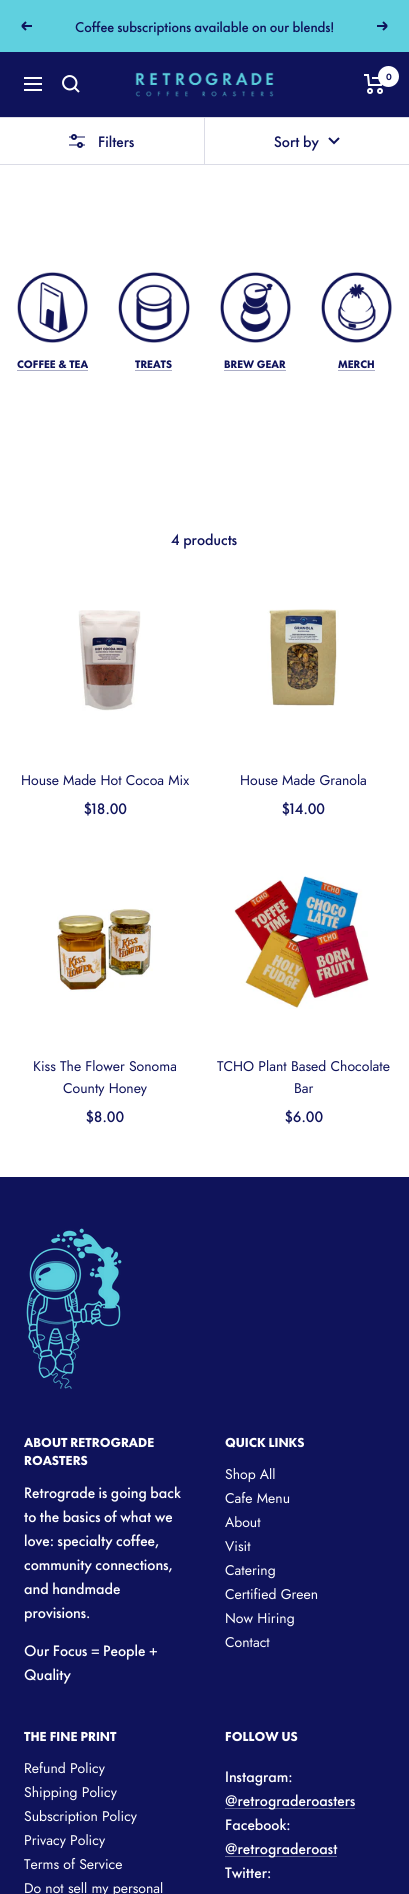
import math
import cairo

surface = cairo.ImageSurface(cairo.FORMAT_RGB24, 409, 1894)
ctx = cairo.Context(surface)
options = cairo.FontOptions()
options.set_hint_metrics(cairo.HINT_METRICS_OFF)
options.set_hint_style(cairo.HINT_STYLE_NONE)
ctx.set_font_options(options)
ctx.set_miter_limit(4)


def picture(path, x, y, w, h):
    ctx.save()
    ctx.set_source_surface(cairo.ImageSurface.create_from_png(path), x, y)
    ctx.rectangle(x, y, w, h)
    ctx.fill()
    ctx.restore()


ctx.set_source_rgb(1, 1, 1)
ctx.paint()
ctx.set_source_rgb(0.373, 0.816, 0.875)
ctx.rectangle(0, 0, 409, 52)
ctx.fill()
ctx.new_path()
ctx.move_to(32, 26)
ctx.line_to(22, 26)
ctx.move_to(22, 26)
ctx.line_to(26, 30)
ctx.move_to(22, 26)
ctx.line_to(26, 22)
ctx.set_source_rgb(0.059, 0.078, 0.357)
ctx.stroke()
ctx.select_font_face("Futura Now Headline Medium")
ctx.set_font_size(13)
ctx.move_to(75, 32)
ctx.show_text("Coffee subscriptions available on our blends!")
ctx.new_path()
ctx.move_to(377, 26)
ctx.line_to(387, 26)
ctx.move_to(387, 26)
ctx.line_to(383, 30)
ctx.move_to(387, 26)
ctx.line_to(383, 22)
ctx.stroke()
ctx.rectangle(0, 52, 409, 65)
ctx.fill()
ctx.new_path()
ctx.move_to(24, 78)
ctx.line_to(42, 78)
ctx.move_to(24, 90)
ctx.line_to(42, 90)
ctx.close_path()
ctx.move_to(24, 84)
ctx.line_to(42, 84)
ctx.close_path()
ctx.move_to(74.5, 87.5)
ctx.curve_to(80.5, 81, 71.5, 72, 65, 78)
ctx.curve_to(59, 84.5, 68, 93.5, 74.5, 87.5)
ctx.close_path()
ctx.move_to(74.5, 87.5)
ctx.line_to(79, 92)
ctx.set_source_rgb(1, 1, 1)
ctx.stroke()
picture("img1.png", 135, 72, 139, 25)
ctx.new_path()
ctx.move_to(364, 75)
ctx.line_to(368, 75)
ctx.line_to(369, 85)
ctx.line_to(381, 85)
ctx.line_to(383, 78)
ctx.line_to(372, 78)
ctx.stroke()
ctx.arc(370, 91, 2, 0, 2 * math.pi)
ctx.stroke()
ctx.arc(380, 91, 2, 0, 2 * math.pi)
ctx.stroke()
ctx.arc(388.5, 76.5, 10.5, 0, 2 * math.pi)
ctx.fill()
ctx.select_font_face("Jost SemiBold")
ctx.set_font_size(9)
ctx.set_source_rgb(0.059, 0.078, 0.357)
ctx.move_to(386, 80)
ctx.show_text("0")
ctx.set_source_rgb(0.859, 0.863, 0.902)
ctx.rectangle(0, 117, 409, 1)
ctx.fill()
ctx.rectangle(0, 164, 409, 1)
ctx.fill()
picture("img2.png", 69, 134, 16, 14)
ctx.select_font_face("Futura Now Headline Medium")
ctx.set_font_size(14)
ctx.set_source_rgb(0.059, 0.078, 0.357)
ctx.move_to(98, 147)
ctx.show_text("Filters")
ctx.set_source_rgb(0.859, 0.863, 0.902)
ctx.rectangle(204, 117, 1, 48)
ctx.fill()
ctx.set_source_rgb(0.059, 0.078, 0.357)
ctx.move_to(274, 147)
ctx.show_text("Sort by")
ctx.new_path()
ctx.move_to(329, 138)
ctx.line_to(334, 143)
ctx.line_to(339, 138)
ctx.stroke()
picture("img3.png", 17, 272, 71, 71)
ctx.select_font_face("Futura Now Headline ExtraBold")
ctx.set_font_size(10)
ctx.move_to(17, 368)
ctx.show_text("COFFEE & TEA")
ctx.set_source_rgb(0.671, 0.678, 0.776)
ctx.rectangle(17, 370, 71, 1)
ctx.fill()
picture("img4.png", 118, 272, 72, 71)
ctx.set_source_rgb(0.059, 0.078, 0.357)
ctx.move_to(135, 368)
ctx.show_text("TREATS")
ctx.set_source_rgb(0.671, 0.678, 0.776)
ctx.rectangle(135, 370, 37, 1)
ctx.fill()
picture("img5.png", 220, 272, 71, 71)
ctx.set_source_rgb(0.059, 0.078, 0.357)
ctx.move_to(224, 368)
ctx.show_text("BREW GEAR")
ctx.set_source_rgb(0.671, 0.678, 0.776)
ctx.rectangle(224, 370, 62, 1)
ctx.fill()
picture("img6.png", 321, 272, 71, 71)
ctx.set_source_rgb(0.059, 0.078, 0.357)
ctx.move_to(338, 368)
ctx.show_text("MERCH")
ctx.set_source_rgb(0.671, 0.678, 0.776)
ctx.rectangle(338, 370, 37, 1)
ctx.fill()
ctx.select_font_face("Futura Now Headline Medium")
ctx.set_font_size(14)
ctx.set_source_rgb(0.059, 0.078, 0.357)
ctx.move_to(171, 545)
ctx.show_text("4 products")
picture("img7.png", 78, 610, 63, 101)
ctx.select_font_face("Jost")
ctx.move_to(21, 785)
ctx.show_text("House Made Hot Cocoa Mix")
ctx.select_font_face("Futura Now Headline Medium")
ctx.move_to(84, 814)
ctx.show_text("$18.00")
picture("img8.png", 267, 609, 72, 97)
ctx.select_font_face("Jost")
ctx.move_to(240, 785)
ctx.show_text("House Made Granola")
ctx.select_font_face("Futura Now Headline Medium")
ctx.move_to(282, 814)
ctx.show_text("$14.00")
picture("img9.png", 57, 908, 96, 84)
ctx.select_font_face("Jost")
ctx.move_to(33, 1071)
ctx.show_text("Kiss The Flower Sonoma")
ctx.move_to(63, 1093)
ctx.show_text("County Honey")
ctx.select_font_face("Futura Now Headline Medium")
ctx.move_to(86, 1122)
ctx.show_text("$8.00")
picture("img10.png", 234, 876, 136, 133)
ctx.select_font_face("Jost")
ctx.move_to(217, 1071)
ctx.show_text("TCHO Plant Based Chocolate")
ctx.move_to(294, 1093)
ctx.show_text("Bar")
ctx.select_font_face("Futura Now Headline Medium")
ctx.move_to(285, 1122)
ctx.show_text("$6.00")
ctx.rectangle(0, 1177, 409, 717)
ctx.fill()
picture("img11.png", 26, 1228, 96, 161)
ctx.select_font_face("Futura Now Headline ExtraBold")
ctx.set_font_size(12)
ctx.set_source_rgb(1, 1, 1)
ctx.move_to(24, 1447)
ctx.show_text("ABOUT RETROGRADE")
ctx.move_to(24, 1465)
ctx.show_text("ROASTERS")
ctx.select_font_face("Futura Now Headline Medium")
ctx.set_font_size(14)
ctx.move_to(24, 1498)
ctx.show_text("Retrograde is going back")
ctx.move_to(24, 1522)
ctx.show_text("to the basics of what we")
ctx.move_to(24, 1546)
ctx.show_text("love: specialty coffee,")
ctx.move_to(24, 1570)
ctx.show_text("community connections,")
ctx.move_to(24, 1594)
ctx.show_text("and handmade")
ctx.move_to(24, 1618)
ctx.show_text("provisions.")
ctx.move_to(24, 1656)
ctx.show_text("Our Focus = People +")
ctx.move_to(24, 1680)
ctx.show_text("Quality")
ctx.select_font_face("Futura Now Headline ExtraBold")
ctx.set_font_size(12)
ctx.move_to(225, 1447)
ctx.show_text("QUICK LINKS")
ctx.select_font_face("Jost")
ctx.set_font_size(14)
ctx.move_to(225, 1479)
ctx.show_text("Shop All")
ctx.move_to(225, 1503)
ctx.show_text("Cafe Menu")
ctx.move_to(225, 1527)
ctx.show_text("About")
ctx.move_to(225, 1551)
ctx.show_text("Visit")
ctx.move_to(225, 1575)
ctx.show_text("Catering")
ctx.move_to(225, 1599)
ctx.show_text("Certified Green")
ctx.move_to(225, 1623)
ctx.show_text("Now Hiring")
ctx.move_to(225, 1647)
ctx.show_text("Contact")
ctx.select_font_face("Futura Now Headline ExtraBold")
ctx.set_font_size(12)
ctx.move_to(24, 1741)
ctx.show_text("THE FINE PRINT")
ctx.select_font_face("Jost")
ctx.set_font_size(14)
ctx.move_to(24, 1773)
ctx.show_text("Refund Policy")
ctx.move_to(24, 1797)
ctx.show_text("Shipping Policy")
ctx.move_to(24, 1821)
ctx.show_text("Subscription Policy")
ctx.move_to(24, 1845)
ctx.show_text("Privacy Policy")
ctx.move_to(24, 1869)
ctx.show_text("Terms of Service")
ctx.move_to(24, 1893)
ctx.show_text("Do not sell my personal")
ctx.select_font_face("Futura Now Headline ExtraBold")
ctx.set_font_size(12)
ctx.move_to(225, 1741)
ctx.show_text("FOLLOW US")
ctx.select_font_face("Futura Now Headline Medium")
ctx.set_font_size(14)
ctx.move_to(225, 1782)
ctx.show_text("Instagram:")
ctx.set_source_rgb(0.388, 0.4, 0.58)
ctx.rectangle(225, 1808, 130, 1)
ctx.fill()
ctx.set_source_rgb(1, 1, 1)
ctx.move_to(225, 1806)
ctx.show_text("@retrograderoasters")
ctx.move_to(225, 1830)
ctx.show_text("Facebook:")
ctx.set_source_rgb(0.388, 0.4, 0.58)
ctx.rectangle(225, 1856, 112, 1)
ctx.fill()
ctx.set_source_rgb(1, 1, 1)
ctx.move_to(225, 1854)
ctx.show_text("@retrograderoast")
ctx.move_to(225, 1878)
ctx.show_text("Twitter:")
surface.write_to_png("page.png")
